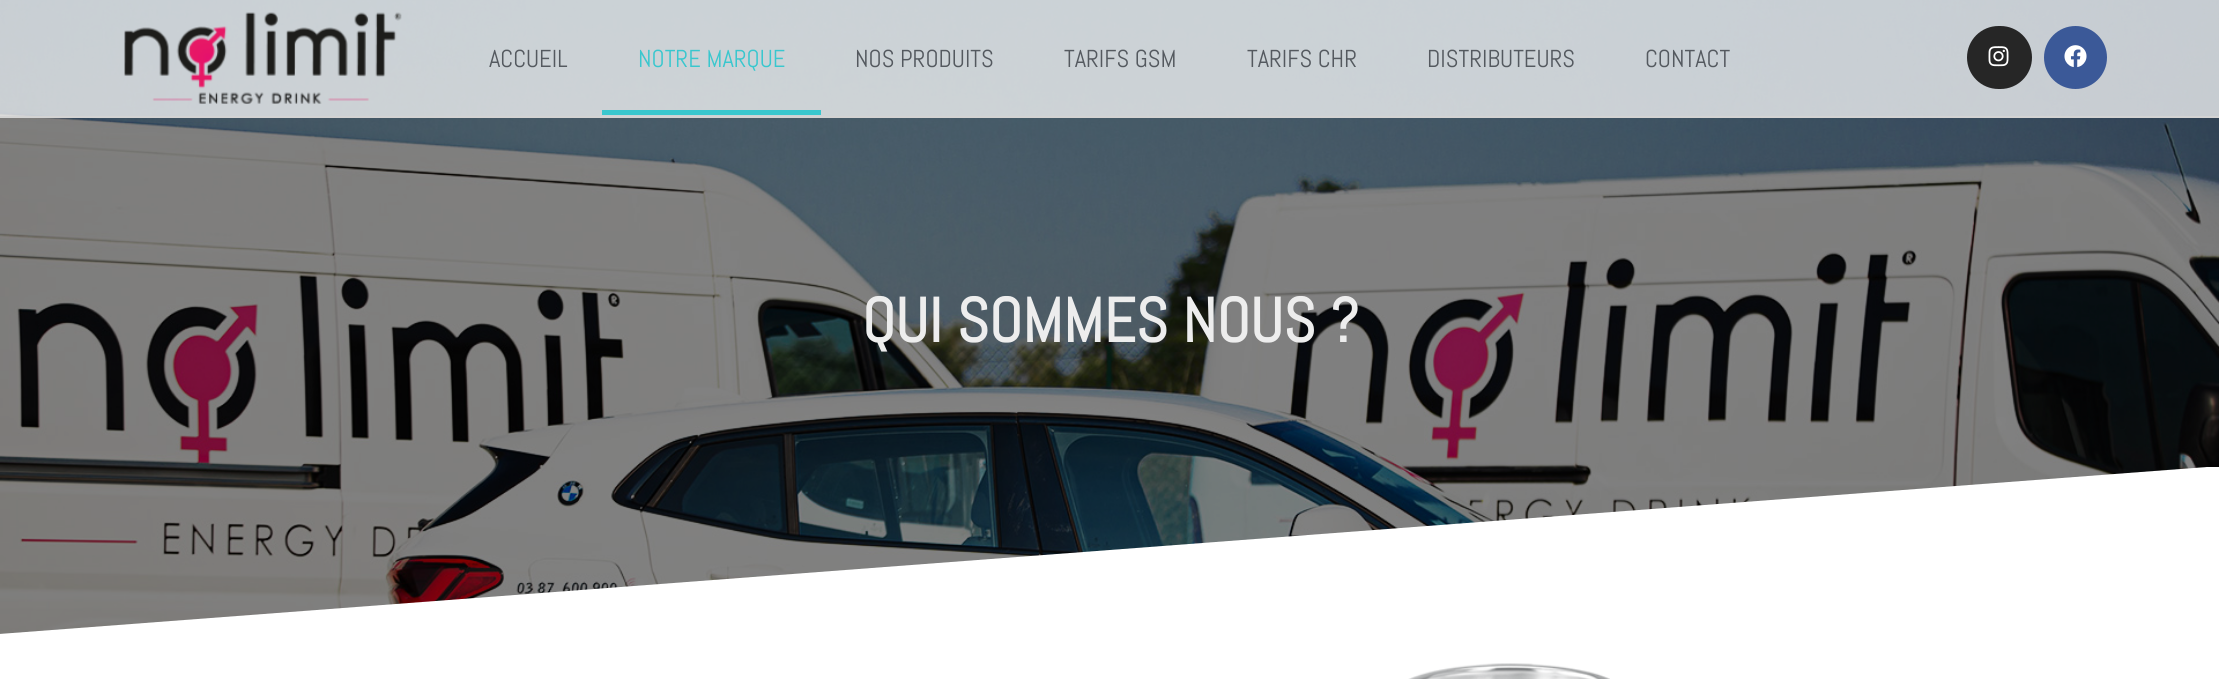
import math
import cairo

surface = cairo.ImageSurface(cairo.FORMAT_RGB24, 2219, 679)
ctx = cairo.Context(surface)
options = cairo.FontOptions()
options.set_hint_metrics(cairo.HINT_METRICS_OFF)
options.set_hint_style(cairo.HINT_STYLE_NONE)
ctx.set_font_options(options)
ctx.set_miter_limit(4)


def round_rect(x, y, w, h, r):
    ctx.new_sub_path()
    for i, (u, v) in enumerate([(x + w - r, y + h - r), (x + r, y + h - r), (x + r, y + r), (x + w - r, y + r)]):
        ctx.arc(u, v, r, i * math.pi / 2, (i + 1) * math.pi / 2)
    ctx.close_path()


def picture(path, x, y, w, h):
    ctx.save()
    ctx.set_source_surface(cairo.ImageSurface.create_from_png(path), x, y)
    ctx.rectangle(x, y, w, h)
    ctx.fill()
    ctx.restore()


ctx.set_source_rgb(1, 1, 1)
ctx.paint()
picture("img4.png", 0, 0, 2219, 634)
ctx.set_source_rgba(1, 1, 1, 0.73)
ctx.rectangle(0, 0, 2219, 116)
ctx.fill()
ctx.set_source_rgb(0.827, 0.827, 0.827)
ctx.rectangle(0, 116, 2219, 2)
ctx.fill()
picture("img1.png", 124, 12, 278, 92)
ctx.select_font_face("Abel")
ctx.set_font_size(24.5)
ctx.set_source_rgb(0.329, 0.349, 0.373)
ctx.move_to(489, 67)
ctx.show_text("ACCUEIL")
ctx.set_source_rgb(0.224, 0.78, 0.808)
ctx.move_to(638, 67)
ctx.show_text("NOTRE MARQUE")
ctx.rectangle(602, 110, 219, 5)
ctx.fill()
ctx.set_source_rgb(0.329, 0.349, 0.373)
ctx.move_to(855, 67)
ctx.show_text("NOS PRODUITS")
ctx.move_to(1064, 67)
ctx.show_text("TARIFS GSM")
ctx.move_to(1247, 67)
ctx.show_text("TARIFS CHR")
ctx.move_to(1427, 67)
ctx.show_text("DISTRIBUTEURS")
ctx.move_to(1645, 67)
ctx.show_text("CONTACT")
ctx.set_source_rgb(0.149, 0.149, 0.149)
round_rect(1967, 26, 65, 63, 31.5)
ctx.fill()
picture("img2.png", 1988, 46, 21, 21)
ctx.set_source_rgb(0.231, 0.349, 0.596)
ctx.arc(2075.5, 57.5, 31.5, 0, 2 * math.pi)
ctx.fill()
picture("img3.png", 2064, 45, 23, 23)
ctx.select_font_face("Abel", cairo.FONT_SLANT_NORMAL, cairo.FONT_WEIGHT_BOLD)
ctx.set_font_size(62.25)
ctx.set_source_rgb(0.929, 0.929, 0.929)
ctx.move_to(862, 342)
ctx.show_text("QUI SOMMES NOUS ?")
ctx.save()
ctx.rectangle(0, 467, 2219, 179)
ctx.clip()
ctx.set_source_rgb(1, 1, 1)
ctx.new_path()
ctx.move_to(-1, 634)
ctx.line_to(-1, 644)
ctx.line_to(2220, 644)
ctx.line_to(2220, 466)
ctx.close_path()
ctx.fill()
ctx.restore()
picture("img5.png", 1408, 663, 202, 16)
surface.write_to_png("page.png")
